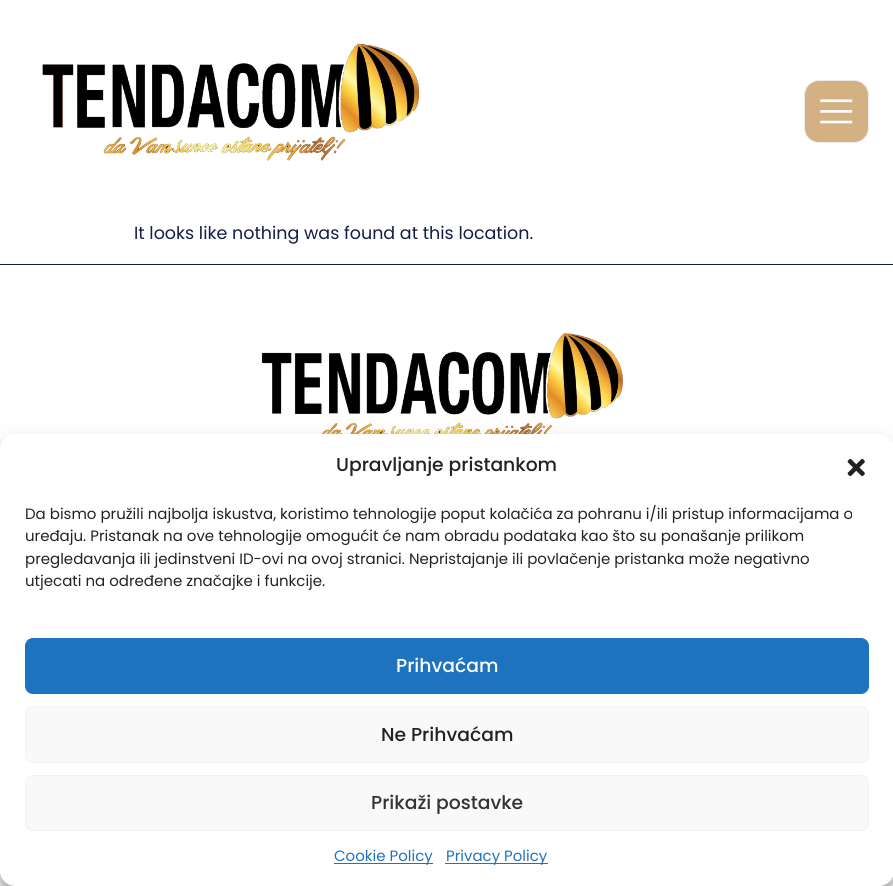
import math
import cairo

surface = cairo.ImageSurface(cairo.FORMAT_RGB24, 893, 886)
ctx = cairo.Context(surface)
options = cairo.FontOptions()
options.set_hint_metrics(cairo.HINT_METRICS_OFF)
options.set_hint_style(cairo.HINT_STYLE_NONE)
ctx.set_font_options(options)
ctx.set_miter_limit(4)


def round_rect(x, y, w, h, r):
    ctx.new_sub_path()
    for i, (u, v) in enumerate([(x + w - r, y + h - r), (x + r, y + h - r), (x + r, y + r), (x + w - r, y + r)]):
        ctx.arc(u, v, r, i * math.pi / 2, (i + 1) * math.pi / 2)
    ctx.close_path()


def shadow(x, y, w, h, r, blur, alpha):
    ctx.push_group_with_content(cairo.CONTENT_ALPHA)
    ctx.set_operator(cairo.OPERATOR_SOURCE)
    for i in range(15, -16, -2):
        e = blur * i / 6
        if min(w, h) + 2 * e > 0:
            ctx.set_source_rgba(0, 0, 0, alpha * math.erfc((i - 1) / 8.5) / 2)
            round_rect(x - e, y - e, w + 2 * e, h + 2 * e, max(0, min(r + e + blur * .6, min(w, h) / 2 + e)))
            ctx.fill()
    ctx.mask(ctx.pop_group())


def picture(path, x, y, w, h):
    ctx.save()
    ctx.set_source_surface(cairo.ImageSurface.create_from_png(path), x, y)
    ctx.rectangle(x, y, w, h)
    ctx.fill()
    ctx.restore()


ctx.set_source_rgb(1, 1, 1)
ctx.paint()
picture("img1.png", 42, 43, 377, 118)
ctx.set_source_rgb(0.827, 0.694, 0.514)
round_rect(804.5, 80.5, 64, 62, 14.5)
ctx.fill_preserve()
ctx.set_source_rgb(0.918, 0.918, 0.922)
ctx.set_line_width(1)
ctx.stroke()
picture("img2.png", 820, 99, 33, 25)
ctx.select_font_face("Poppins")
ctx.set_font_size(17.5)
ctx.set_source_rgb(0.078, 0.118, 0.275)
ctx.move_to(134, 239)
ctx.show_text("It looks like nothing was found at this location.")
ctx.rectangle(0, 264, 893, 1)
ctx.fill()
picture("img3.png", 261, 333, 362, 101)
ctx.set_source_rgb(0, 0, 0)
shadow(0, 441, 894, 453, 15, 4, 0.23)
shadow(0, 446, 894, 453, 15, 12.5, 0.19)
ctx.set_source_rgb(1, 1, 1)
round_rect(0, 434, 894, 452, 15)
ctx.fill()
ctx.select_font_face("Poppins Medium")
ctx.set_font_size(18.75)
ctx.set_source_rgb(0.133, 0.133, 0.133)
ctx.move_to(336, 471)
ctx.show_text("Upravljanje pristankom")
picture("img4.png", 847, 458, 18, 19)
ctx.select_font_face("Poppins")
ctx.set_font_size(15)
ctx.move_to(25, 519)
ctx.show_text("Da bismo pružili najbolja iskustva, koristimo tehnologije poput kolačića za pohranu i/ili pristup informacijama o")
ctx.move_to(25, 541)
ctx.show_text("uređaju. Pristanak na ove tehnologije omogućit će nam obradu podataka kao što su ponašanje prilikom")
ctx.move_to(25, 564)
ctx.show_text("pregledavanja ili jedinstveni ID-ovi na ovoj stranici. Nepristajanje ili povlačenje pristanka može negativno")
ctx.move_to(25, 586)
ctx.show_text("utjecati na određene značajke i funkcije.")
ctx.set_source_rgb(0.118, 0.451, 0.745)
round_rect(25.5, 638.5, 843, 55, 7.5)
ctx.fill_preserve()
ctx.stroke()
ctx.select_font_face("Poppins Medium")
ctx.set_font_size(18.75)
ctx.set_source_rgb(1, 1, 1)
ctx.move_to(396, 672)
ctx.show_text("Prihvaćam")
ctx.set_source_rgb(0.976, 0.976, 0.976)
round_rect(25.5, 706.5, 843, 56, 7.5)
ctx.fill_preserve()
ctx.set_source_rgb(0.949, 0.949, 0.949)
ctx.stroke()
ctx.set_source_rgb(0.133, 0.133, 0.133)
ctx.move_to(381, 741)
ctx.show_text("Ne Prihvaćam")
ctx.set_source_rgb(0.976, 0.976, 0.976)
round_rect(25.5, 775.5, 843, 55, 7.5)
ctx.fill_preserve()
ctx.set_source_rgb(0.949, 0.949, 0.949)
ctx.stroke()
ctx.set_source_rgb(0.2, 0.2, 0.2)
ctx.move_to(371, 809)
ctx.show_text("Prikaži postavke")
ctx.set_source_rgb(0.118, 0.451, 0.745)
ctx.rectangle(334, 863, 99, 1)
ctx.fill()
ctx.select_font_face("Poppins")
ctx.set_font_size(15)
ctx.move_to(334, 861)
ctx.show_text("Cookie Policy")
ctx.rectangle(445, 863, 103, 1)
ctx.fill()
ctx.move_to(446, 861)
ctx.show_text("Privacy Policy")
surface.write_to_png("page.png")
